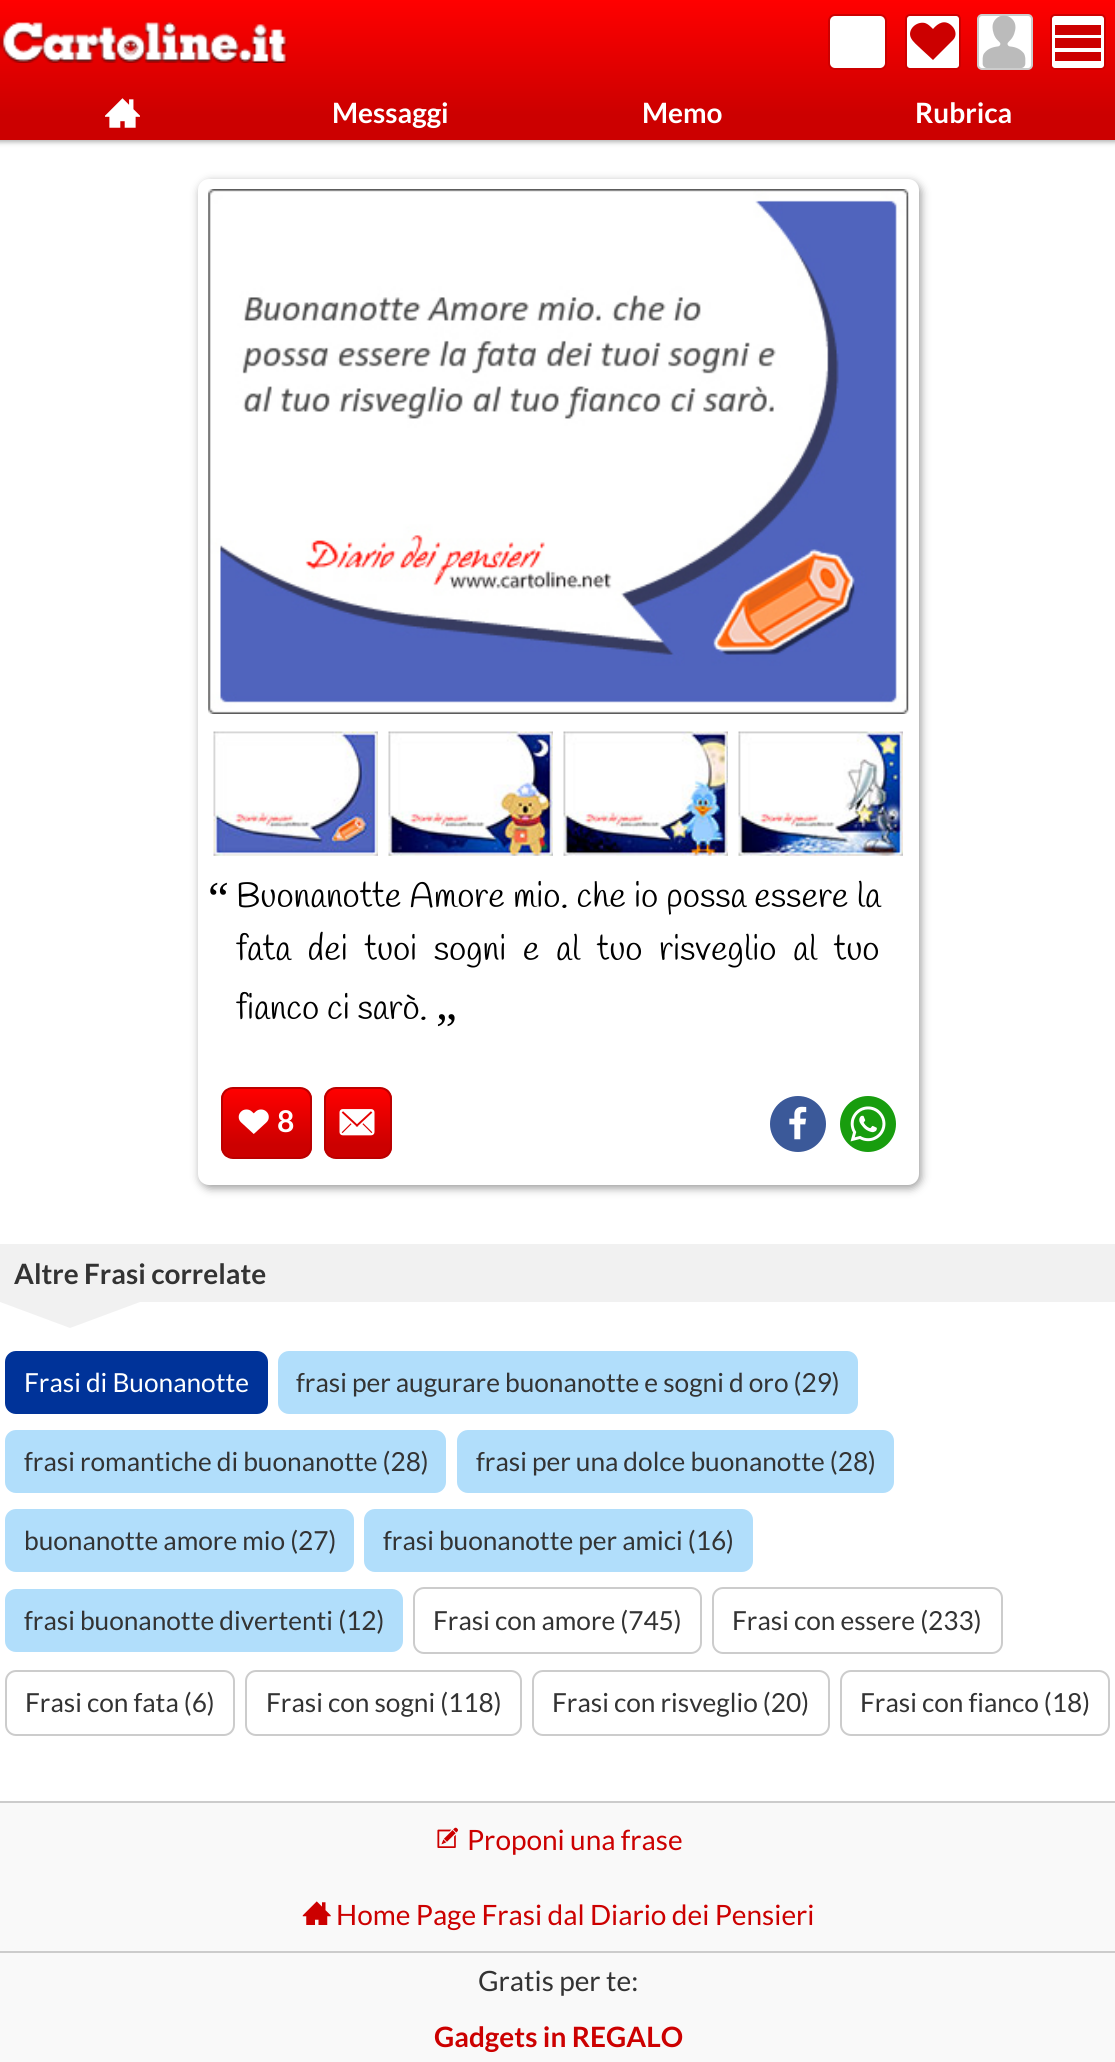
import math
import cairo

surface = cairo.ImageSurface(cairo.FORMAT_RGB24, 1115, 2062)
ctx = cairo.Context(surface)
options = cairo.FontOptions()
options.set_hint_metrics(cairo.HINT_METRICS_OFF)
options.set_hint_style(cairo.HINT_STYLE_NONE)
ctx.set_font_options(options)
ctx.set_miter_limit(4)


def spaced_text(x, y, s, letter, word):
    ctx.move_to(x, y)
    for ch in s:
        ctx.show_text(ch)
        ctx.rel_move_to(letter + word * (ch == ' '), 0)


def round_rect(x, y, w, h, r):
    ctx.new_sub_path()
    for i, (u, v) in enumerate([(x + w - r, y + h - r), (x + r, y + h - r), (x + r, y + r), (x + w - r, y + r)]):
        ctx.arc(u, v, r, i * math.pi / 2, (i + 1) * math.pi / 2)
    ctx.close_path()


def shadow(x, y, w, h, r, blur, alpha):
    ctx.push_group_with_content(cairo.CONTENT_ALPHA)
    ctx.set_operator(cairo.OPERATOR_SOURCE)
    for i in range(15, -16, -2):
        e = blur * i / 6
        if min(w, h) + 2 * e > 0:
            ctx.set_source_rgba(0, 0, 0, alpha * math.erfc((i - 1) / 8.5) / 2)
            round_rect(x - e, y - e, w + 2 * e, h + 2 * e, max(0, min(r + e + blur * .6, min(w, h) / 2 + e)))
            ctx.fill()
    ctx.mask(ctx.pop_group())


def picture(path, x, y, w, h):
    ctx.save()
    ctx.set_source_surface(cairo.ImageSurface.create_from_png(path), x, y)
    ctx.rectangle(x, y, w, h)
    ctx.fill()
    ctx.restore()


ctx.set_source_rgb(1, 1, 1)
ctx.paint()
ctx.set_source_rgb(0.69, 0.69, 0.69)
shadow(-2, -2, 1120, 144, 0, 2.5, 1)
gradient = cairo.LinearGradient(558, 0, 558, 140)
gradient.add_color_stop_rgba(0, 1, 0, 0, 1)
gradient.add_color_stop_rgba(0.82, 0.8, 0, 0, 1)
ctx.set_source(gradient)
ctx.rectangle(0, 0, 1115, 140)
ctx.fill()
picture("img1.png", 0, 22, 288, 41)
ctx.set_source_rgb(1, 1, 1)
round_rect(829, 15, 57, 54, 6)
ctx.fill_preserve()
ctx.set_source_rgb(0.8, 0, 0)
ctx.stroke()
ctx.set_source_rgb(1, 1, 1)
round_rect(906, 15, 54, 54, 4)
ctx.fill_preserve()
ctx.set_source_rgb(0.8, 0, 0)
ctx.stroke()
ctx.new_path()
ctx.move_to(952, 26)
ctx.curve_to(945, 19, 938, 23, 933, 29)
ctx.curve_to(930, 26, 928, 24, 925, 23)
ctx.curve_to(916, 21, 907, 30, 911, 38)
ctx.curve_to(913, 42, 917, 45, 920, 48)
ctx.line_to(933, 60)
ctx.line_to(953, 40)
ctx.curve_to(957, 36, 956, 30, 952, 26)
ctx.close_path()
ctx.fill()
ctx.set_source_rgb(1, 1, 1)
round_rect(978, 15, 54, 54, 4)
ctx.fill_preserve()
ctx.set_source_rgb(0.8, 0.8, 0.8)
ctx.stroke()
picture("img2.png", 982, 15, 44, 53)
ctx.set_source_rgb(1, 1, 1)
round_rect(1051, 15, 54, 54, 4)
ctx.fill_preserve()
ctx.set_source_rgb(0.8, 0, 0)
ctx.stroke()
ctx.new_path()
ctx.move_to(1055, 25)
ctx.line_to(1101, 25)
ctx.line_to(1101, 35)
ctx.line_to(1055, 35)
ctx.close_path()
ctx.move_to(1055, 38)
ctx.line_to(1101, 38)
ctx.line_to(1101, 48)
ctx.line_to(1055, 48)
ctx.close_path()
ctx.move_to(1055, 52)
ctx.line_to(1101, 52)
ctx.line_to(1101, 61)
ctx.line_to(1055, 61)
ctx.close_path()
ctx.fill()
picture("img3.png", 105, 98, 35, 30)
ctx.select_font_face("Lato", cairo.FONT_SLANT_NORMAL, cairo.FONT_WEIGHT_BOLD)
ctx.set_font_size(28)
ctx.set_source_rgb(1, 1, 1)
ctx.move_to(332, 123)
ctx.show_text("Messaggi")
ctx.move_to(642, 123)
ctx.show_text("Memo")
ctx.move_to(915, 123)
ctx.show_text("Rubrica")
ctx.set_source_rgb(0.6, 0.6, 0.6)
shadow(200, 182, 721, 1006, 11, 4.5, 1)
ctx.set_source_rgb(1, 1, 1)
round_rect(203.5, 184.5, 710, 995, 5.5)
ctx.fill_preserve()
ctx.set_line_width(11)
ctx.stroke()
picture("img4.png", 208, 189, 701, 525)
picture("img5.png", 213, 731, 165, 125)
picture("img6.png", 388, 731, 165, 125)
picture("img7.png", 563, 731, 165, 125)
picture("img8.png", 738, 731, 165, 125)
ctx.select_font_face("Liberation Serif")
ctx.set_font_size(47)
ctx.set_source_rgb(0, 0, 0)
ctx.move_to(208, 914)
ctx.show_text("“")
ctx.select_font_face("Handlee")
ctx.set_font_size(35)
spaced_text(236, 907, "Buonanotte Amore mio. che io possa essere la", 0, 0.25)
spaced_text(236, 960, "fata dei tuoi sogni e al tuo risveglio al tuo", 0, 8.75)
ctx.move_to(236, 1019)
ctx.show_text("fianco ci sarò.")
ctx.select_font_face("Liberation Serif")
ctx.set_font_size(47)
ctx.move_to(436, 1019)
ctx.show_text("„")
ctx.save()
round_rect(221, 1087, 91, 72, 12)
ctx.clip()
gradient = cairo.LinearGradient(266, 1089, 266, 1157)
gradient.add_color_stop_rgba(0, 1, 0, 0, 1)
gradient.add_color_stop_rgba(0.82, 0.8, 0, 0, 1)
ctx.set_source(gradient)
ctx.rectangle(221, 1089, 91, 68)
ctx.fill()
ctx.restore()
round_rect(222, 1088, 89, 70, 11)
ctx.set_source_rgb(0.733, 0, 0)
ctx.set_line_width(2)
ctx.stroke()
picture("img9.png", 238, 1109, 31, 25)
ctx.select_font_face("Lato", cairo.FONT_SLANT_NORMAL, cairo.FONT_WEIGHT_BOLD)
ctx.set_font_size(30)
ctx.set_source_rgb(1, 1, 1)
ctx.move_to(277, 1132)
ctx.show_text("8")
ctx.save()
round_rect(324, 1087, 68, 72, 12)
ctx.clip()
gradient = cairo.LinearGradient(358, 1089, 358, 1157)
gradient.add_color_stop_rgba(0, 1, 0, 0, 1)
gradient.add_color_stop_rgba(0.82, 0.8, 0, 0, 1)
ctx.set_source(gradient)
ctx.rectangle(324, 1089, 68, 68)
ctx.fill()
ctx.restore()
round_rect(325, 1088, 66, 70, 11)
ctx.set_source_rgb(0.733, 0, 0)
ctx.stroke()
picture("img10.png", 339, 1109, 36, 27)
ctx.set_source_rgb(0.231, 0.349, 0.6)
ctx.arc(798, 1124, 28, 0, 2 * math.pi)
ctx.fill()
picture("img11.png", 789, 1106, 18, 34)
ctx.set_source_rgb(0.094, 0.616, 0.055)
ctx.arc(868, 1124, 28, 0, 2 * math.pi)
ctx.fill()
picture("img12.png", 850, 1106, 36, 36)
ctx.set_source_rgb(0.945, 0.945, 0.945)
ctx.rectangle(0, 1244, 1115, 58)
ctx.fill()
ctx.set_font_size(28)
ctx.set_source_rgb(0.2, 0.2, 0.2)
ctx.move_to(14, 1284)
ctx.show_text("Altre Frasi correlate")
ctx.set_source_rgb(0.945, 0.945, 0.945)
ctx.new_path()
ctx.move_to(0, 1302)
ctx.line_to(140, 1302)
ctx.line_to(70, 1328)
ctx.close_path()
ctx.fill()
ctx.set_source_rgb(0, 0.2, 0.6)
round_rect(5, 1351, 263, 63, 11)
ctx.fill()
ctx.select_font_face("Lato")
ctx.set_font_size(26.25)
ctx.set_source_rgb(1, 1, 1)
ctx.move_to(24, 1392)
ctx.show_text("Frasi di Buonanotte")
ctx.set_source_rgb(0.694, 0.871, 0.984)
round_rect(278, 1351, 580, 63, 11)
ctx.fill()
ctx.set_source_rgb(0.2, 0.2, 0.2)
ctx.move_to(296, 1392)
ctx.show_text("frasi per augurare buonanotte e sogni d oro (29)")
ctx.set_source_rgb(0.694, 0.871, 0.984)
round_rect(5, 1430, 441, 63, 11)
ctx.fill()
ctx.set_source_rgb(0.2, 0.2, 0.2)
ctx.move_to(24, 1471)
ctx.show_text("frasi romantiche di buonanotte (28)")
ctx.set_source_rgb(0.694, 0.871, 0.984)
round_rect(457, 1430, 437, 63, 11)
ctx.fill()
ctx.set_source_rgb(0.2, 0.2, 0.2)
ctx.move_to(476, 1471)
ctx.show_text("frasi per una dolce buonanotte (28)")
ctx.set_source_rgb(0.694, 0.871, 0.984)
round_rect(5, 1509, 349, 63, 11)
ctx.fill()
ctx.set_source_rgb(0.2, 0.2, 0.2)
ctx.move_to(24, 1550)
ctx.show_text("buonanotte amore mio (27)")
ctx.set_source_rgb(0.694, 0.871, 0.984)
round_rect(364, 1509, 389, 63, 11)
ctx.fill()
ctx.set_source_rgb(0.2, 0.2, 0.2)
ctx.move_to(383, 1550)
ctx.show_text("frasi buonanotte per amici (16)")
ctx.set_source_rgb(0.694, 0.871, 0.984)
round_rect(5, 1589, 398, 63, 11)
ctx.fill()
ctx.set_source_rgb(0.2, 0.2, 0.2)
ctx.move_to(24, 1630)
ctx.show_text("frasi buonanotte divertenti (12)")
round_rect(414, 1588, 287, 65, 10)
ctx.set_source_rgb(0.8, 0.8, 0.8)
ctx.stroke()
ctx.set_source_rgb(0.2, 0.2, 0.2)
ctx.move_to(433, 1630)
ctx.show_text("Frasi con amore (745)")
round_rect(713, 1588, 289, 65, 10)
ctx.set_source_rgb(0.8, 0.8, 0.8)
ctx.stroke()
ctx.set_source_rgb(0.2, 0.2, 0.2)
ctx.move_to(732, 1630)
ctx.show_text("Frasi con essere (233)")
round_rect(6, 1671, 228, 64, 10)
ctx.set_source_rgb(0.8, 0.8, 0.8)
ctx.stroke()
ctx.set_source_rgb(0.2, 0.2, 0.2)
ctx.move_to(25, 1712)
ctx.show_text("Frasi con fata (6)")
round_rect(246, 1671, 275, 64, 10)
ctx.set_source_rgb(0.8, 0.8, 0.8)
ctx.stroke()
ctx.set_source_rgb(0.2, 0.2, 0.2)
ctx.move_to(266, 1712)
ctx.show_text("Frasi con sogni (118)")
round_rect(533, 1671, 296, 64, 10)
ctx.set_source_rgb(0.8, 0.8, 0.8)
ctx.stroke()
ctx.set_source_rgb(0.2, 0.2, 0.2)
ctx.move_to(552, 1712)
ctx.show_text("Frasi con risveglio (20)")
round_rect(841, 1671, 268, 64, 10)
ctx.set_source_rgb(0.8, 0.8, 0.8)
ctx.stroke()
ctx.set_source_rgb(0.2, 0.2, 0.2)
ctx.move_to(860, 1712)
ctx.show_text("Frasi con fianco (18)")
ctx.set_source_rgb(0.973, 0.973, 0.973)
ctx.rectangle(0, 1803, 1115, 259)
ctx.fill()
ctx.set_source_rgb(0.8, 0.8, 0.8)
ctx.rectangle(0, 1801, 1115, 2)
ctx.fill()
ctx.rectangle(0, 1951, 1115, 2)
ctx.fill()
picture("img13.png", 437, 1827, 21, 21)
ctx.set_font_size(28)
ctx.set_source_rgb(0.8, 0, 0)
ctx.move_to(467, 1850)
ctx.show_text("Proponi una frase")
picture("img14.png", 302, 1901, 29, 24)
ctx.move_to(336, 1925)
ctx.show_text("Home Page Frasi dal Diario dei Pensieri")
ctx.set_source_rgb(0.2, 0.2, 0.2)
ctx.move_to(478, 1991)
ctx.show_text("Gratis per te:")
ctx.select_font_face("Lato", cairo.FONT_SLANT_NORMAL, cairo.FONT_WEIGHT_BOLD)
ctx.set_source_rgb(0.8, 0, 0)
ctx.move_to(434, 2047)
ctx.show_text("Gadgets in REGALO")
surface.write_to_png("page.png")
